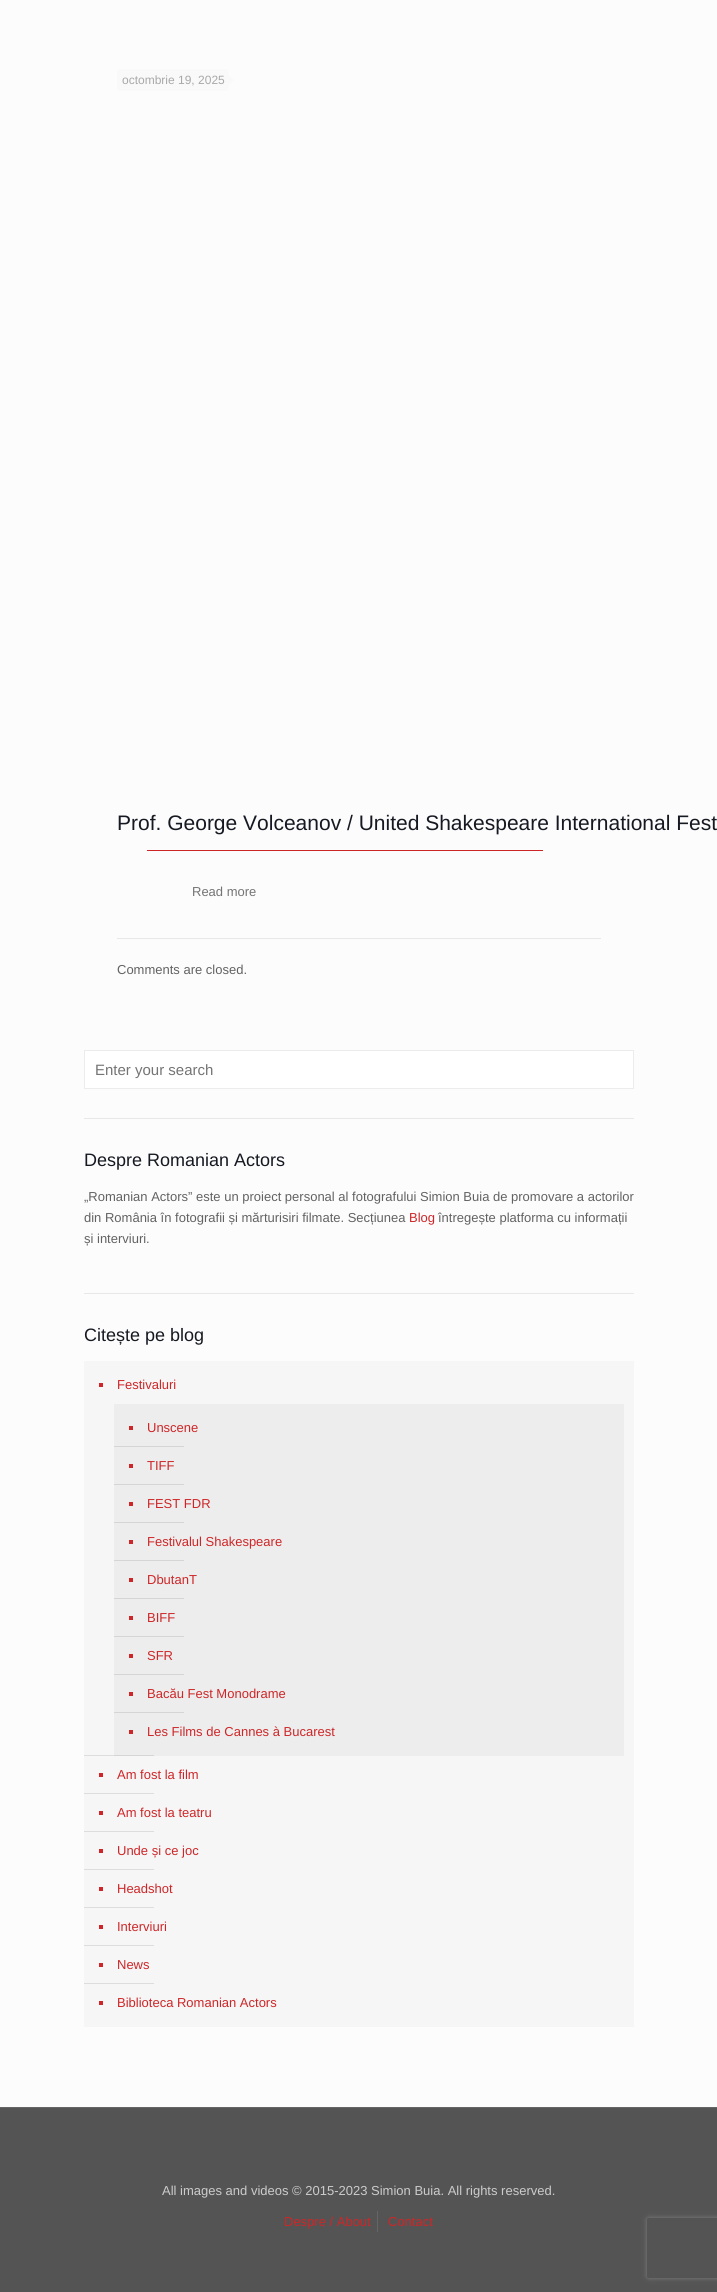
import math
import cairo

surface = cairo.ImageSurface(cairo.FORMAT_RGB24, 717, 2292)
ctx = cairo.Context(surface)
options = cairo.FontOptions()
options.set_hint_metrics(cairo.HINT_METRICS_OFF)
options.set_hint_style(cairo.HINT_STYLE_NONE)
ctx.set_font_options(options)
ctx.set_miter_limit(4)


def round_rect(x, y, w, h, r):
    ctx.new_sub_path()
    for i, (u, v) in enumerate([(x + w - r, y + h - r), (x + r, y + h - r), (x + r, y + r), (x + w - r, y + r)]):
        ctx.arc(u, v, r, i * math.pi / 2, (i + 1) * math.pi / 2)
    ctx.close_path()


def shadow(x, y, w, h, r, blur, alpha):
    ctx.push_group_with_content(cairo.CONTENT_ALPHA)
    ctx.set_operator(cairo.OPERATOR_SOURCE)
    for i in range(15, -16, -2):
        e = blur * i / 6
        if min(w, h) + 2 * e > 0:
            ctx.set_source_rgba(0, 0, 0, alpha * math.erfc((i - 1) / 8.5) / 2)
            round_rect(x - e, y - e, w + 2 * e, h + 2 * e, max(0, min(r + e + blur * .6, min(w, h) / 2 + e)))
            ctx.fill()
    ctx.mask(ctx.pop_group())


ctx.set_source_rgb(0.988, 0.988, 0.988)
ctx.paint()
ctx.set_source_rgb(0.973, 0.973, 0.973)
round_rect(117, 69, 112, 22, 4)
ctx.fill()
ctx.select_font_face("Liberation Sans")
ctx.set_font_size(12)
ctx.set_source_rgb(0.659, 0.659, 0.659)
ctx.move_to(122, 84)
ctx.show_text("octombrie 19, 2025")
ctx.set_source_rgb(0.973, 0.973, 0.973)
ctx.new_path()
ctx.move_to(229, 85)
ctx.line_to(229, 75)
ctx.line_to(234, 80)
ctx.close_path()
ctx.fill()
ctx.set_font_size(21)
ctx.set_source_rgb(0.086, 0.098, 0.133)
ctx.move_to(117, 830)
ctx.show_text("Prof. George Volceanov / United Shakespeare International Fest")
ctx.set_source_rgb(0.808, 0.149, 0.157)
ctx.rectangle(147, 850, 396, 1)
ctx.fill()
ctx.set_font_size(13)
ctx.set_source_rgb(0.455, 0.455, 0.455)
ctx.move_to(192, 896)
ctx.show_text("Read more")
ctx.set_source_rgb(0.91, 0.91, 0.91)
ctx.rectangle(117, 938, 484, 1)
ctx.fill()
ctx.set_source_rgb(0.384, 0.384, 0.384)
ctx.move_to(117, 974)
ctx.show_text("Comments are closed.")
ctx.set_source_rgb(1, 1, 1)
ctx.rectangle(84.5, 1050.5, 549, 38)
ctx.fill_preserve()
ctx.set_source_rgb(0.922, 0.922, 0.922)
ctx.set_line_width(1)
ctx.stroke()
ctx.set_font_size(15)
ctx.set_source_rgb(0.455, 0.455, 0.455)
ctx.move_to(95, 1075)
ctx.show_text("Enter your search")
ctx.set_source_rgb(0.91, 0.91, 0.91)
ctx.rectangle(84, 1118, 550, 1)
ctx.fill()
ctx.set_font_size(18)
ctx.set_source_rgb(0.086, 0.098, 0.133)
ctx.move_to(84, 1166)
ctx.show_text("Despre Romanian Actors")
ctx.set_font_size(13)
ctx.set_source_rgb(0.384, 0.384, 0.384)
ctx.move_to(84, 1201)
ctx.show_text("„Romanian Actors” este un proiect personal al fotografului Simion Buia de promovare a actorilor")
ctx.move_to(84, 1222)
ctx.show_text("din România în fotografii și mărturisiri filmate. Secțiunea")
ctx.set_source_rgb(0.808, 0.149, 0.157)
ctx.move_to(409, 1222)
ctx.show_text("Blog")
ctx.set_source_rgb(0.384, 0.384, 0.384)
ctx.move_to(438, 1222)
ctx.show_text("întregește platforma cu informații")
ctx.move_to(84, 1243)
ctx.show_text("și interviuri.")
ctx.set_source_rgb(0.91, 0.91, 0.91)
ctx.rectangle(84, 1293, 550, 1)
ctx.fill()
ctx.set_font_size(18)
ctx.set_source_rgb(0.086, 0.098, 0.133)
ctx.move_to(84, 1341)
ctx.show_text("Citește pe blog")
ctx.set_source_rgb(0.961, 0.961, 0.961)
ctx.rectangle(84, 1361, 550, 666)
ctx.fill()
ctx.set_source_rgb(0.867, 0.867, 0.867)
ctx.rectangle(84, 1755, 30, 1)
ctx.fill()
ctx.set_source_rgb(0.808, 0.149, 0.157)
ctx.rectangle(99, 1383, 4, 4)
ctx.fill()
ctx.set_font_size(13)
ctx.move_to(117, 1389)
ctx.show_text("Festivaluri")
ctx.set_source_rgb(0.929, 0.929, 0.929)
ctx.rectangle(114, 1404, 510, 352)
ctx.fill()
ctx.set_source_rgb(0.835, 0.835, 0.835)
ctx.rectangle(114, 1755, 40, 1)
ctx.fill()
ctx.set_source_rgb(0.808, 0.149, 0.157)
ctx.rectangle(129, 1426, 4, 4)
ctx.fill()
ctx.move_to(147, 1432)
ctx.show_text("Unscene")
ctx.set_source_rgb(0.835, 0.835, 0.835)
ctx.rectangle(114, 1446, 70, 1)
ctx.fill()
ctx.set_source_rgb(0.808, 0.149, 0.157)
ctx.rectangle(129, 1464, 4, 4)
ctx.fill()
ctx.move_to(147, 1470)
ctx.show_text("TIFF")
ctx.set_source_rgb(0.835, 0.835, 0.835)
ctx.rectangle(114, 1484, 70, 1)
ctx.fill()
ctx.set_source_rgb(0.808, 0.149, 0.157)
ctx.rectangle(129, 1502, 4, 4)
ctx.fill()
ctx.move_to(147, 1508)
ctx.show_text("FEST FDR")
ctx.set_source_rgb(0.835, 0.835, 0.835)
ctx.rectangle(114, 1522, 70, 1)
ctx.fill()
ctx.set_source_rgb(0.808, 0.149, 0.157)
ctx.rectangle(129, 1540, 4, 4)
ctx.fill()
ctx.move_to(147, 1546)
ctx.show_text("Festivalul Shakespeare")
ctx.set_source_rgb(0.835, 0.835, 0.835)
ctx.rectangle(114, 1560, 70, 1)
ctx.fill()
ctx.set_source_rgb(0.808, 0.149, 0.157)
ctx.rectangle(129, 1578, 4, 4)
ctx.fill()
ctx.move_to(147, 1584)
ctx.show_text("DbutanT")
ctx.set_source_rgb(0.835, 0.835, 0.835)
ctx.rectangle(114, 1598, 70, 1)
ctx.fill()
ctx.set_source_rgb(0.808, 0.149, 0.157)
ctx.rectangle(129, 1616, 4, 4)
ctx.fill()
ctx.move_to(147, 1622)
ctx.show_text("BIFF")
ctx.set_source_rgb(0.835, 0.835, 0.835)
ctx.rectangle(114, 1636, 70, 1)
ctx.fill()
ctx.set_source_rgb(0.808, 0.149, 0.157)
ctx.rectangle(129, 1654, 4, 4)
ctx.fill()
ctx.move_to(147, 1660)
ctx.show_text("SFR")
ctx.set_source_rgb(0.835, 0.835, 0.835)
ctx.rectangle(114, 1674, 70, 1)
ctx.fill()
ctx.set_source_rgb(0.808, 0.149, 0.157)
ctx.rectangle(129, 1692, 4, 4)
ctx.fill()
ctx.move_to(147, 1698)
ctx.show_text("Bacău Fest Monodrame")
ctx.set_source_rgb(0.835, 0.835, 0.835)
ctx.rectangle(114, 1712, 70, 1)
ctx.fill()
ctx.set_source_rgb(0.808, 0.149, 0.157)
ctx.rectangle(129, 1730, 4, 4)
ctx.fill()
ctx.move_to(147, 1736)
ctx.show_text("Les Films de Cannes à Bucarest")
ctx.rectangle(99, 1773, 4, 4)
ctx.fill()
ctx.move_to(117, 1779)
ctx.show_text("Am fost la film")
ctx.set_source_rgb(0.867, 0.867, 0.867)
ctx.rectangle(84, 1793, 70, 1)
ctx.fill()
ctx.set_source_rgb(0.808, 0.149, 0.157)
ctx.rectangle(99, 1811, 4, 4)
ctx.fill()
ctx.move_to(117, 1817)
ctx.show_text("Am fost la teatru")
ctx.set_source_rgb(0.867, 0.867, 0.867)
ctx.rectangle(84, 1831, 70, 1)
ctx.fill()
ctx.set_source_rgb(0.808, 0.149, 0.157)
ctx.rectangle(99, 1849, 4, 4)
ctx.fill()
ctx.move_to(117, 1855)
ctx.show_text("Unde și ce joc")
ctx.set_source_rgb(0.867, 0.867, 0.867)
ctx.rectangle(84, 1869, 70, 1)
ctx.fill()
ctx.set_source_rgb(0.808, 0.149, 0.157)
ctx.rectangle(99, 1887, 4, 4)
ctx.fill()
ctx.move_to(117, 1893)
ctx.show_text("Headshot")
ctx.set_source_rgb(0.867, 0.867, 0.867)
ctx.rectangle(84, 1907, 70, 1)
ctx.fill()
ctx.set_source_rgb(0.808, 0.149, 0.157)
ctx.rectangle(99, 1925, 4, 4)
ctx.fill()
ctx.move_to(117, 1931)
ctx.show_text("Interviuri")
ctx.set_source_rgb(0.867, 0.867, 0.867)
ctx.rectangle(84, 1945, 70, 1)
ctx.fill()
ctx.set_source_rgb(0.808, 0.149, 0.157)
ctx.rectangle(99, 1963, 4, 4)
ctx.fill()
ctx.move_to(117, 1969)
ctx.show_text("News")
ctx.set_source_rgb(0.867, 0.867, 0.867)
ctx.rectangle(84, 1983, 70, 1)
ctx.fill()
ctx.set_source_rgb(0.808, 0.149, 0.157)
ctx.rectangle(99, 2001, 4, 4)
ctx.fill()
ctx.move_to(117, 2007)
ctx.show_text("Biblioteca Romanian Actors")
ctx.set_source_rgb(0.329, 0.329, 0.329)
ctx.rectangle(0, 2108, 717, 184)
ctx.fill()
ctx.set_source_rgb(0.396, 0.396, 0.396)
ctx.rectangle(0, 2107, 717, 1)
ctx.fill()
ctx.set_source_rgb(0.8, 0.8, 0.8)
ctx.move_to(162, 2195)
ctx.show_text("All images and videos © 2015-2023 Simion Buia. All rights reserved.")
ctx.set_source_rgb(0.396, 0.396, 0.396)
ctx.rectangle(377, 2211, 1, 21)
ctx.fill()
ctx.set_source_rgb(0.808, 0.149, 0.157)
ctx.move_to(284, 2226)
ctx.show_text("Despre / About")
ctx.move_to(388, 2226)
ctx.show_text("Contact")
ctx.save()
ctx.set_fill_rule(cairo.FILL_RULE_EVEN_ODD)
ctx.new_path()
ctx.move_to(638, 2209)
ctx.line_to(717, 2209)
ctx.line_to(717, 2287)
ctx.line_to(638, 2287)
ctx.close_path()
ctx.move_to(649, 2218)
ctx.line_to(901, 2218)
ctx.curve_to(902, 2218, 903, 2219, 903, 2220)
ctx.line_to(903, 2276)
ctx.curve_to(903, 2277, 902, 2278, 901, 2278)
ctx.line_to(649, 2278)
ctx.curve_to(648, 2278, 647, 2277, 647, 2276)
ctx.line_to(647, 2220)
ctx.curve_to(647, 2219, 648, 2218, 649, 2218)
ctx.close_path()
ctx.clip()
ctx.set_source_rgb(0.502, 0.502, 0.502)
shadow(647, 2218, 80, 60, 2, 2.5, 1)
ctx.restore()
surface.write_to_png("page.png")
